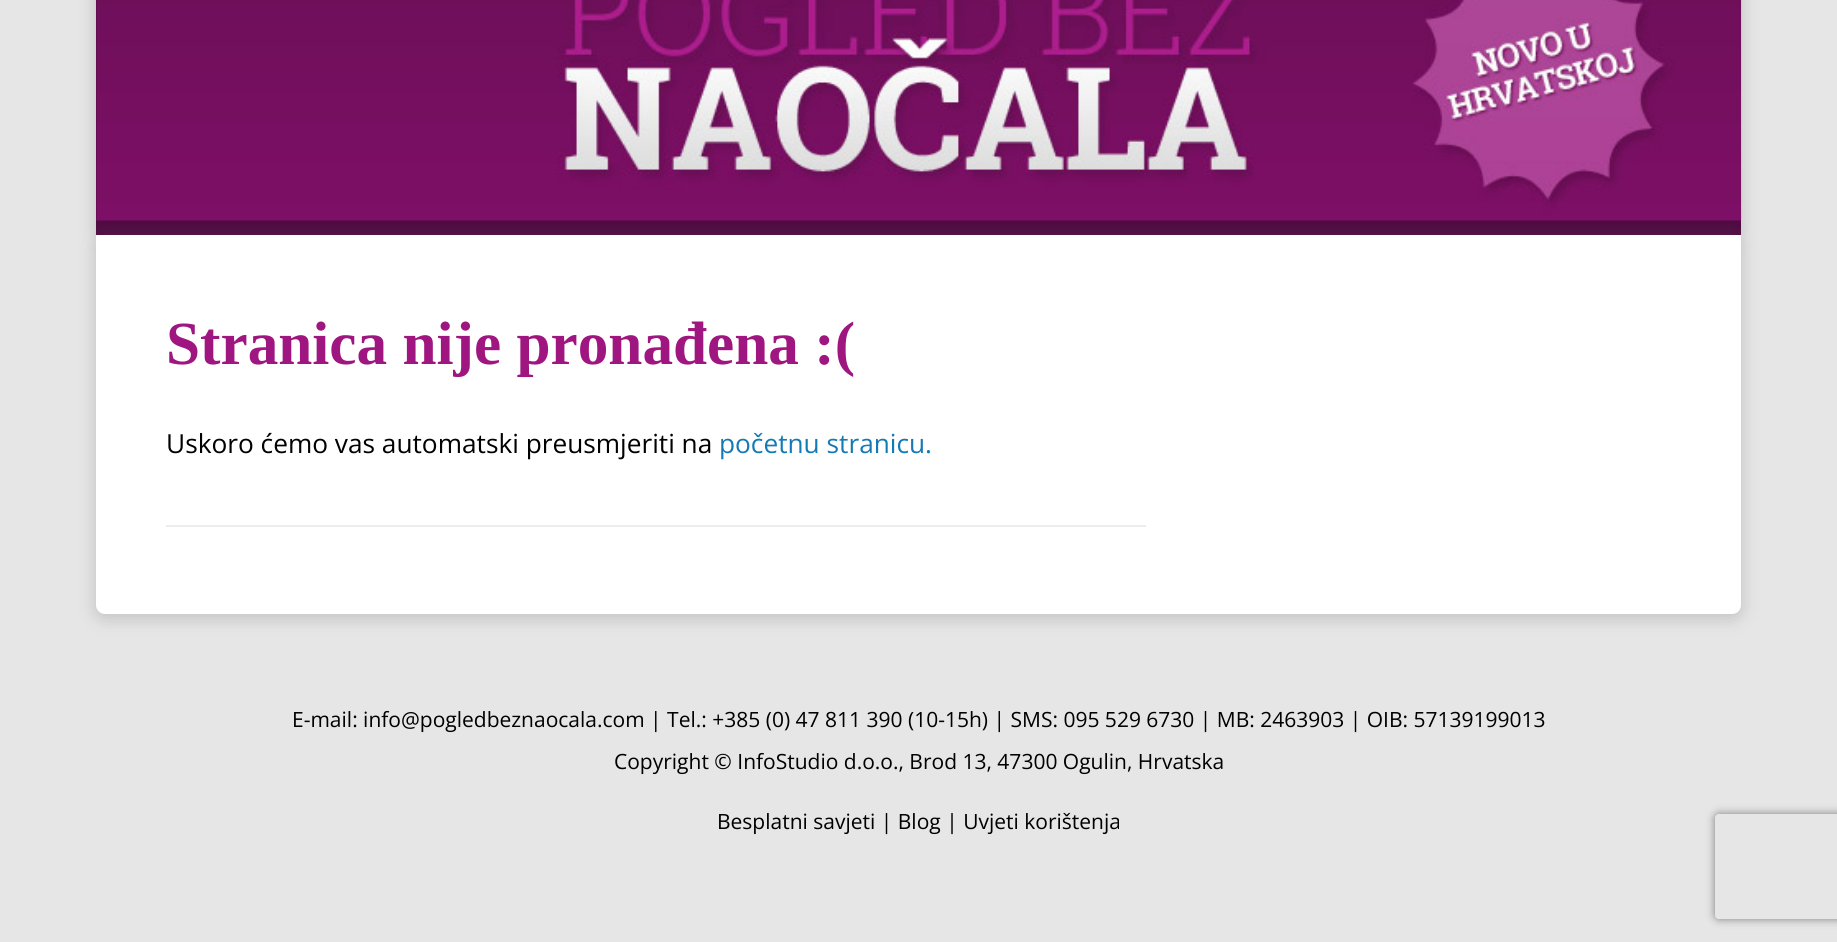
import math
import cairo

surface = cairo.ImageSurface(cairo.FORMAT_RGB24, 1837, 942)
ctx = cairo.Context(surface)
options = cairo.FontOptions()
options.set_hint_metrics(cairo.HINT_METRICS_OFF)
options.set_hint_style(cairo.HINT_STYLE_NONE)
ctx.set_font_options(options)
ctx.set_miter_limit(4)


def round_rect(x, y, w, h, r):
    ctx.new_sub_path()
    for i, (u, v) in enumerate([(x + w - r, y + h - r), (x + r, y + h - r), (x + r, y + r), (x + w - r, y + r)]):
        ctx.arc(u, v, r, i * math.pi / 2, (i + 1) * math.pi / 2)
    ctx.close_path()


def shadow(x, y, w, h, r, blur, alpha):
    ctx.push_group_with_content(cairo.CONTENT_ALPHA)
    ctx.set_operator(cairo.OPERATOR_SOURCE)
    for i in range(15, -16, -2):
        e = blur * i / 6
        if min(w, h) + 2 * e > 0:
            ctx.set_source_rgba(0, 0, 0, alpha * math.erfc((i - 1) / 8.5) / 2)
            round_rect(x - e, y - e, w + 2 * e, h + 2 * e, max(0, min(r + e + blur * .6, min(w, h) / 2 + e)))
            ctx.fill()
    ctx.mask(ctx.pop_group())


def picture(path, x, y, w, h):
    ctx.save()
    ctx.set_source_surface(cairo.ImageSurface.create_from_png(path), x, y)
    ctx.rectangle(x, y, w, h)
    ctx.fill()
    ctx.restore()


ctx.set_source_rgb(0.902, 0.902, 0.902)
ctx.paint()
ctx.set_source_rgb(0.392, 0.392, 0.392)
shadow(96, -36, 1645, 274, 9, 9, 0.3)
ctx.set_source_rgb(0.314, 0.043, 0.259)
ctx.rectangle(96, 0, 1645, 235)
ctx.fill()
picture("img1.png", 96, 0, 1646, 221)
ctx.set_source_rgb(0.392, 0.392, 0.392)
shadow(96, 238, 1645, 380, 9, 9, 0.3)
ctx.set_source_rgb(1, 1, 1)
ctx.new_path()
ctx.move_to(96, 235)
ctx.line_to(1741, 235)
ctx.line_to(1741, 605)
ctx.curve_to(1741, 610, 1737, 614, 1732, 614)
ctx.line_to(105, 614)
ctx.curve_to(100, 614, 96, 610, 96, 605)
ctx.close_path()
ctx.fill()
ctx.set_source_rgb(0.929, 0.929, 0.929)
ctx.rectangle(166, 525, 980, 2)
ctx.fill()
ctx.select_font_face("Liberation Serif", cairo.FONT_SLANT_NORMAL, cairo.FONT_WEIGHT_BOLD)
ctx.set_font_size(61.25)
ctx.set_source_rgb(0.624, 0.086, 0.506)
ctx.move_to(166, 364)
ctx.show_text("Stranica nije pronađena :(")
ctx.select_font_face("Open Sans")
ctx.set_font_size(26.25)
ctx.set_source_rgb(0, 0, 0)
ctx.move_to(166, 453)
ctx.show_text("Uskoro ćemo vas automatski preusmjeriti na")
ctx.set_source_rgb(0.082, 0.478, 0.714)
ctx.move_to(719, 453)
ctx.show_text("početnu stranicu.")
ctx.set_font_size(21)
ctx.set_source_rgb(0, 0, 0)
ctx.move_to(292, 727)
ctx.show_text("E-mail: info@pogledbeznaocala.com | Tel.: +385 (0) 47 811 390 (10-15h) | SMS: 095 529 6730 | MB: 2463903 | OIB: 57139199013")
ctx.move_to(614, 769)
ctx.show_text("Copyright © InfoStudio d.o.o., Brod 13, 47300 Ogulin, Hrvatska")
ctx.move_to(717, 829)
ctx.show_text("Besplatni savjeti | Blog | Uvjeti korištenja")
ctx.save()
ctx.set_fill_rule(cairo.FILL_RULE_EVEN_ODD)
ctx.new_path()
ctx.move_to(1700, 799)
ctx.line_to(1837, 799)
ctx.line_to(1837, 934)
ctx.line_to(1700, 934)
ctx.close_path()
ctx.move_to(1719, 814)
ctx.line_to(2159, 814)
ctx.curve_to(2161, 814, 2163, 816, 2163, 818)
ctx.line_to(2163, 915)
ctx.curve_to(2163, 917, 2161, 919, 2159, 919)
ctx.line_to(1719, 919)
ctx.curve_to(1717, 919, 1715, 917, 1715, 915)
ctx.line_to(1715, 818)
ctx.curve_to(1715, 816, 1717, 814, 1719, 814)
ctx.close_path()
ctx.clip()
ctx.set_source_rgb(0.502, 0.502, 0.502)
shadow(1715, 814, 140, 105, 4, 4.5, 1)
ctx.restore()
surface.write_to_png("page.png")
